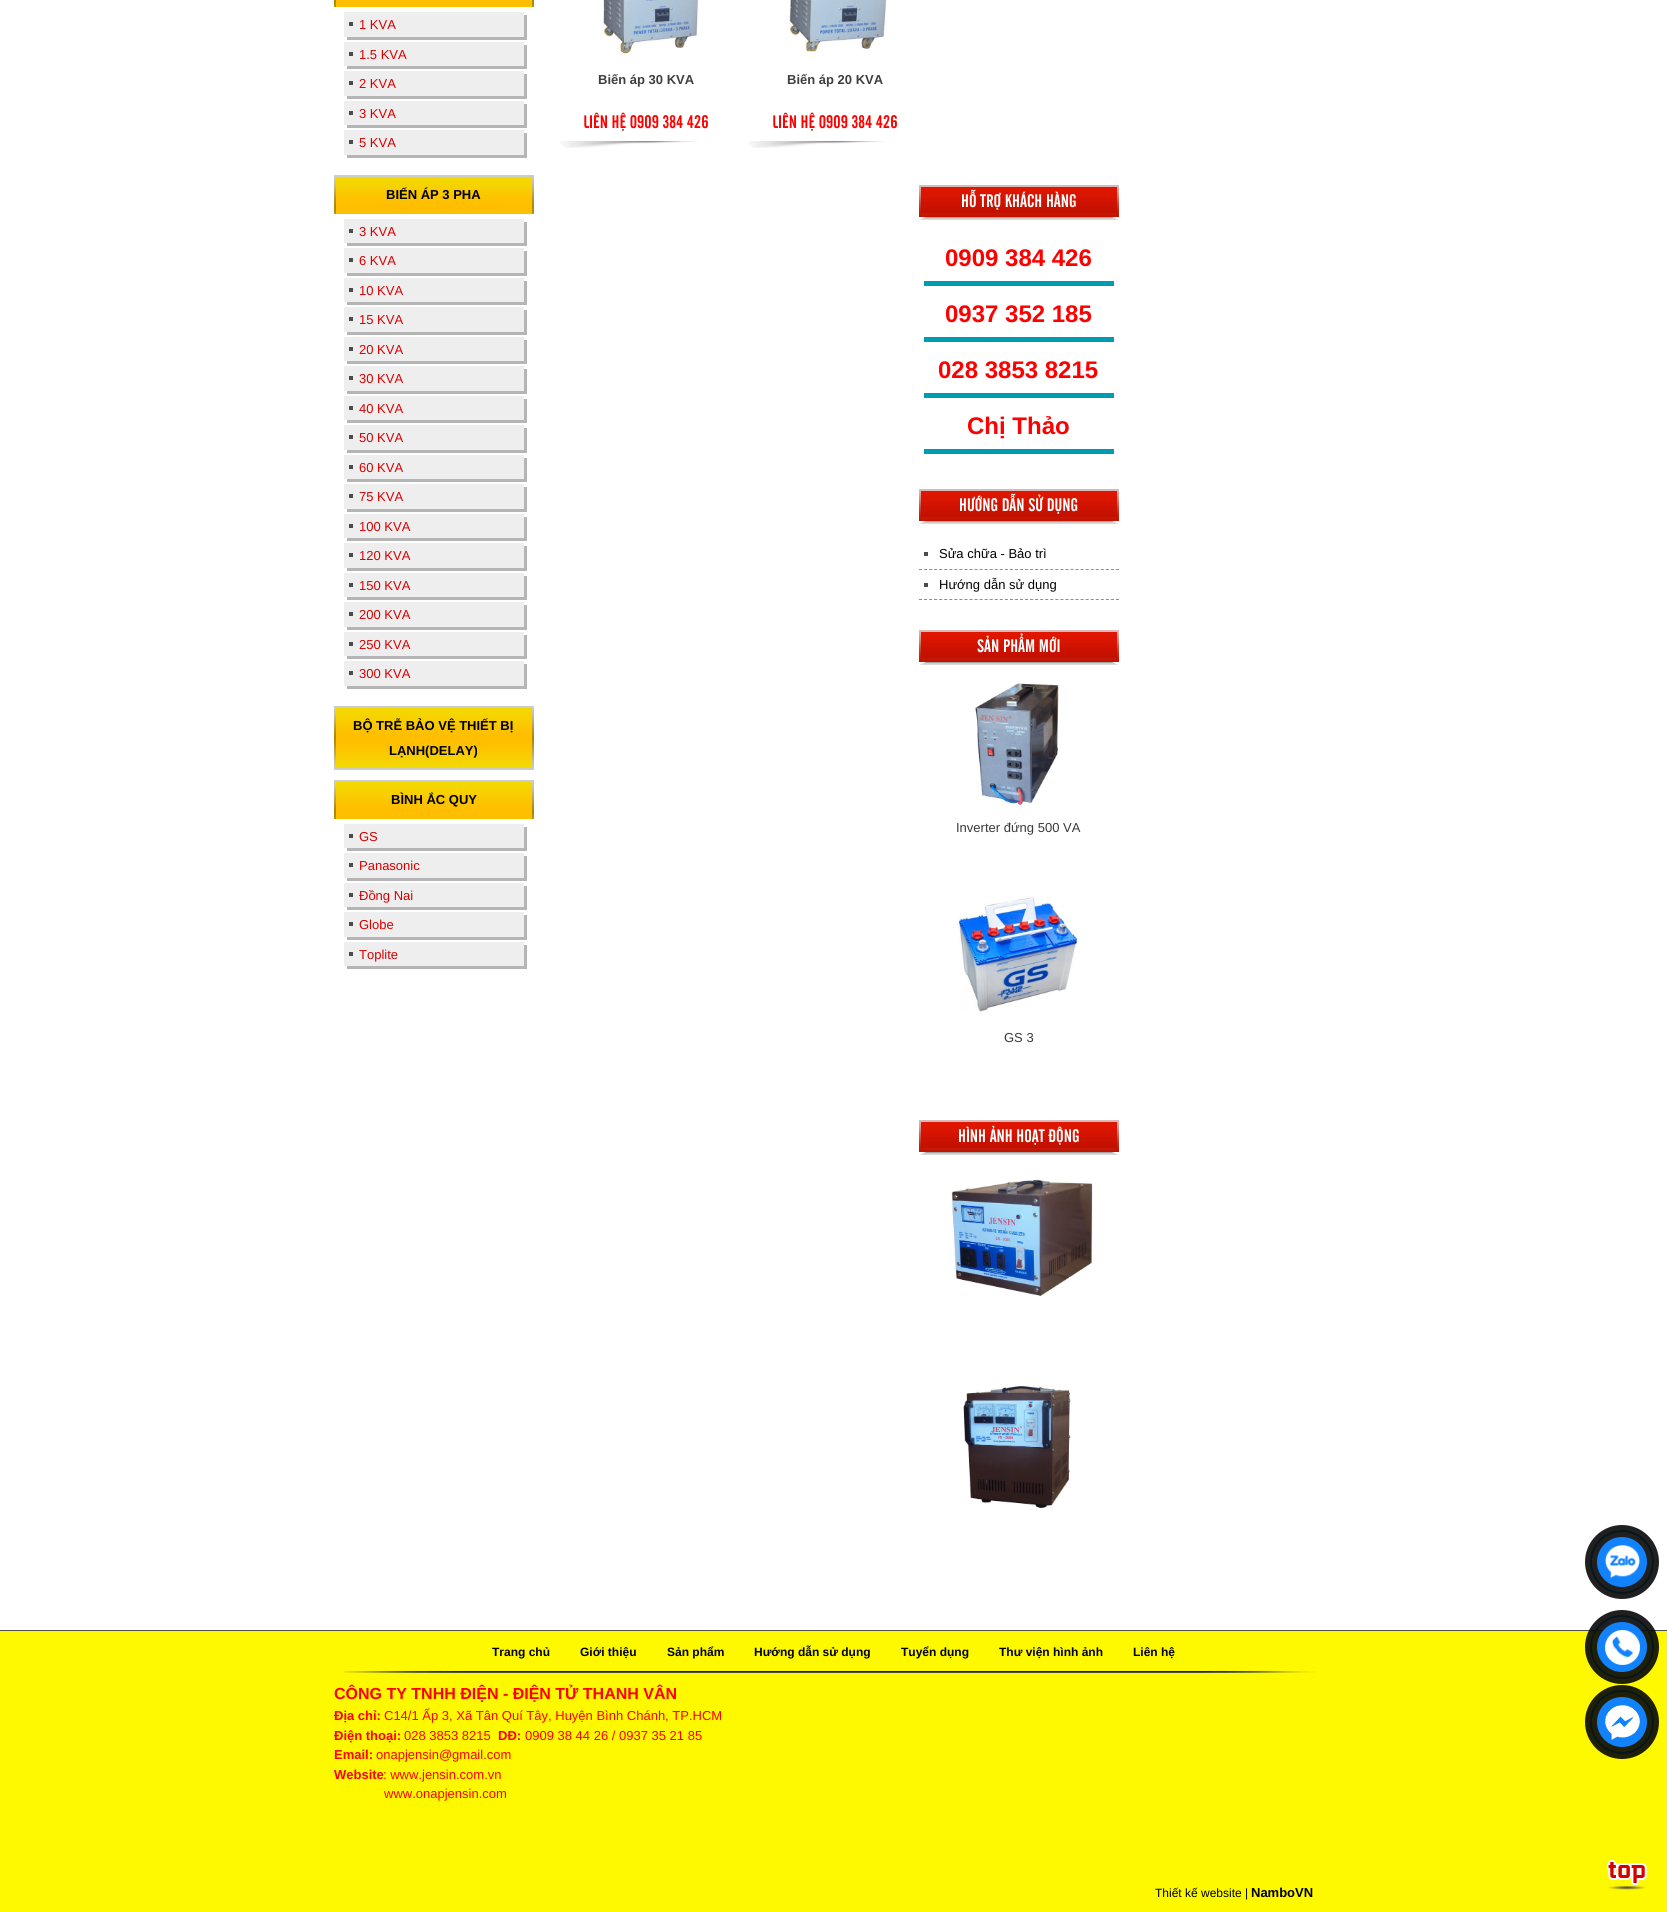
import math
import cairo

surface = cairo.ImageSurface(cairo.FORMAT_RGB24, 1667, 1912)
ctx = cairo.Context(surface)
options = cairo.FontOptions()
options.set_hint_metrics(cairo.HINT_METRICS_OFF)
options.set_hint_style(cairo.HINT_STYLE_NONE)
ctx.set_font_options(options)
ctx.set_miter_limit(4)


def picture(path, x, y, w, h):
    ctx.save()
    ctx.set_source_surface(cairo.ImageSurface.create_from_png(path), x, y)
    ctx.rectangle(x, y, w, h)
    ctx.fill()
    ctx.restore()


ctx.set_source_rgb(1, 1, 1)
ctx.paint()
picture("img1.png", 334, 0, 200, 7)
ctx.set_source_rgb(0.71, 0.71, 0.71)
ctx.new_path()
ctx.move_to(347, 37)
ctx.line_to(347, 40)
ctx.line_to(527, 40)
ctx.line_to(527, 15)
ctx.line_to(524, 15)
ctx.line_to(524, 37)
ctx.close_path()
ctx.fill()
ctx.set_source_rgb(0.933, 0.933, 0.933)
ctx.rectangle(344, 12, 180, 25)
ctx.fill()
ctx.set_source_rgb(0.294, 0.294, 0.294)
ctx.rectangle(349, 22, 4, 4)
ctx.fill()
ctx.select_font_face("Liberation Sans")
ctx.set_font_size(13)
ctx.set_source_rgb(0.855, 0, 0)
ctx.move_to(359, 29)
ctx.show_text("1 KVA")
ctx.set_source_rgb(0.71, 0.71, 0.71)
ctx.new_path()
ctx.move_to(347, 66)
ctx.line_to(347, 69)
ctx.line_to(527, 69)
ctx.line_to(527, 45)
ctx.line_to(524, 45)
ctx.line_to(524, 66)
ctx.close_path()
ctx.fill()
ctx.set_source_rgb(0.933, 0.933, 0.933)
ctx.rectangle(344, 42, 180, 24)
ctx.fill()
ctx.set_source_rgb(0.294, 0.294, 0.294)
ctx.rectangle(349, 52, 4, 4)
ctx.fill()
ctx.set_source_rgb(0.855, 0, 0)
ctx.move_to(359, 59)
ctx.show_text("1.5 KVA")
ctx.set_source_rgb(0.71, 0.71, 0.71)
ctx.new_path()
ctx.move_to(347, 96)
ctx.line_to(347, 99)
ctx.line_to(527, 99)
ctx.line_to(527, 74)
ctx.line_to(524, 74)
ctx.line_to(524, 96)
ctx.close_path()
ctx.fill()
ctx.set_source_rgb(0.933, 0.933, 0.933)
ctx.rectangle(344, 71, 180, 25)
ctx.fill()
ctx.set_source_rgb(0.294, 0.294, 0.294)
ctx.rectangle(349, 81, 4, 4)
ctx.fill()
ctx.set_source_rgb(0.855, 0, 0)
ctx.move_to(359, 88)
ctx.show_text("2 KVA")
ctx.set_source_rgb(0.71, 0.71, 0.71)
ctx.new_path()
ctx.move_to(347, 125)
ctx.line_to(347, 128)
ctx.line_to(527, 128)
ctx.line_to(527, 104)
ctx.line_to(524, 104)
ctx.line_to(524, 125)
ctx.close_path()
ctx.fill()
ctx.set_source_rgb(0.933, 0.933, 0.933)
ctx.rectangle(344, 101, 180, 24)
ctx.fill()
ctx.set_source_rgb(0.294, 0.294, 0.294)
ctx.rectangle(349, 111, 4, 4)
ctx.fill()
ctx.set_source_rgb(0.855, 0, 0)
ctx.move_to(359, 118)
ctx.show_text("3 KVA")
ctx.set_source_rgb(0.71, 0.71, 0.71)
ctx.new_path()
ctx.move_to(347, 155)
ctx.line_to(347, 158)
ctx.line_to(527, 158)
ctx.line_to(527, 133)
ctx.line_to(524, 133)
ctx.line_to(524, 155)
ctx.close_path()
ctx.fill()
ctx.set_source_rgb(0.933, 0.933, 0.933)
ctx.rectangle(344, 130, 180, 25)
ctx.fill()
ctx.set_source_rgb(0.294, 0.294, 0.294)
ctx.rectangle(349, 140, 4, 4)
ctx.fill()
ctx.set_source_rgb(0.855, 0, 0)
ctx.move_to(359, 147)
ctx.show_text("5 KVA")
picture("img2.png", 334, 175, 200, 39)
ctx.select_font_face("Liberation Sans", cairo.FONT_SLANT_NORMAL, cairo.FONT_WEIGHT_BOLD)
ctx.set_source_rgb(0, 0, 0)
ctx.move_to(386, 199)
ctx.show_text("BIẾN ÁP 3 PHA")
ctx.set_source_rgb(0.71, 0.71, 0.71)
ctx.new_path()
ctx.move_to(347, 243)
ctx.line_to(347, 246)
ctx.line_to(527, 246)
ctx.line_to(527, 222)
ctx.line_to(524, 222)
ctx.line_to(524, 243)
ctx.close_path()
ctx.fill()
ctx.set_source_rgb(0.933, 0.933, 0.933)
ctx.rectangle(344, 219, 180, 24)
ctx.fill()
ctx.set_source_rgb(0.294, 0.294, 0.294)
ctx.rectangle(349, 229, 4, 4)
ctx.fill()
ctx.select_font_face("Liberation Sans")
ctx.set_source_rgb(0.855, 0, 0)
ctx.move_to(359, 236)
ctx.show_text("3 KVA")
ctx.set_source_rgb(0.71, 0.71, 0.71)
ctx.new_path()
ctx.move_to(347, 273)
ctx.line_to(347, 276)
ctx.line_to(527, 276)
ctx.line_to(527, 251)
ctx.line_to(524, 251)
ctx.line_to(524, 273)
ctx.close_path()
ctx.fill()
ctx.set_source_rgb(0.933, 0.933, 0.933)
ctx.rectangle(344, 248, 180, 25)
ctx.fill()
ctx.set_source_rgb(0.294, 0.294, 0.294)
ctx.rectangle(349, 258, 4, 4)
ctx.fill()
ctx.set_source_rgb(0.855, 0, 0)
ctx.move_to(359, 265)
ctx.show_text("6 KVA")
ctx.set_source_rgb(0.71, 0.71, 0.71)
ctx.new_path()
ctx.move_to(347, 302)
ctx.line_to(347, 305)
ctx.line_to(527, 305)
ctx.line_to(527, 281)
ctx.line_to(524, 281)
ctx.line_to(524, 302)
ctx.close_path()
ctx.fill()
ctx.set_source_rgb(0.933, 0.933, 0.933)
ctx.rectangle(344, 278, 180, 24)
ctx.fill()
ctx.set_source_rgb(0.294, 0.294, 0.294)
ctx.rectangle(349, 288, 4, 4)
ctx.fill()
ctx.set_source_rgb(0.855, 0, 0)
ctx.move_to(359, 295)
ctx.show_text("10 KVA")
ctx.set_source_rgb(0.71, 0.71, 0.71)
ctx.new_path()
ctx.move_to(347, 332)
ctx.line_to(347, 335)
ctx.line_to(527, 335)
ctx.line_to(527, 310)
ctx.line_to(524, 310)
ctx.line_to(524, 332)
ctx.close_path()
ctx.fill()
ctx.set_source_rgb(0.933, 0.933, 0.933)
ctx.rectangle(344, 307, 180, 25)
ctx.fill()
ctx.set_source_rgb(0.294, 0.294, 0.294)
ctx.rectangle(349, 317, 4, 4)
ctx.fill()
ctx.set_source_rgb(0.855, 0, 0)
ctx.move_to(359, 324)
ctx.show_text("15 KVA")
ctx.set_source_rgb(0.71, 0.71, 0.71)
ctx.new_path()
ctx.move_to(347, 361)
ctx.line_to(347, 364)
ctx.line_to(527, 364)
ctx.line_to(527, 340)
ctx.line_to(524, 340)
ctx.line_to(524, 361)
ctx.close_path()
ctx.fill()
ctx.set_source_rgb(0.933, 0.933, 0.933)
ctx.rectangle(344, 337, 180, 24)
ctx.fill()
ctx.set_source_rgb(0.294, 0.294, 0.294)
ctx.rectangle(349, 347, 4, 4)
ctx.fill()
ctx.set_source_rgb(0.855, 0, 0)
ctx.move_to(359, 354)
ctx.show_text("20 KVA")
ctx.set_source_rgb(0.71, 0.71, 0.71)
ctx.new_path()
ctx.move_to(347, 391)
ctx.line_to(347, 394)
ctx.line_to(527, 394)
ctx.line_to(527, 369)
ctx.line_to(524, 369)
ctx.line_to(524, 391)
ctx.close_path()
ctx.fill()
ctx.set_source_rgb(0.933, 0.933, 0.933)
ctx.rectangle(344, 366, 180, 25)
ctx.fill()
ctx.set_source_rgb(0.294, 0.294, 0.294)
ctx.rectangle(349, 376, 4, 4)
ctx.fill()
ctx.set_source_rgb(0.855, 0, 0)
ctx.move_to(359, 383)
ctx.show_text("30 KVA")
ctx.set_source_rgb(0.71, 0.71, 0.71)
ctx.new_path()
ctx.move_to(347, 420)
ctx.line_to(347, 423)
ctx.line_to(527, 423)
ctx.line_to(527, 399)
ctx.line_to(524, 399)
ctx.line_to(524, 420)
ctx.close_path()
ctx.fill()
ctx.set_source_rgb(0.933, 0.933, 0.933)
ctx.rectangle(344, 396, 180, 24)
ctx.fill()
ctx.set_source_rgb(0.294, 0.294, 0.294)
ctx.rectangle(349, 406, 4, 4)
ctx.fill()
ctx.set_source_rgb(0.855, 0, 0)
ctx.move_to(359, 413)
ctx.show_text("40 KVA")
ctx.set_source_rgb(0.71, 0.71, 0.71)
ctx.new_path()
ctx.move_to(347, 450)
ctx.line_to(347, 453)
ctx.line_to(527, 453)
ctx.line_to(527, 428)
ctx.line_to(524, 428)
ctx.line_to(524, 450)
ctx.close_path()
ctx.fill()
ctx.set_source_rgb(0.933, 0.933, 0.933)
ctx.rectangle(344, 425, 180, 25)
ctx.fill()
ctx.set_source_rgb(0.294, 0.294, 0.294)
ctx.rectangle(349, 435, 4, 4)
ctx.fill()
ctx.set_source_rgb(0.855, 0, 0)
ctx.move_to(359, 442)
ctx.show_text("50 KVA")
ctx.set_source_rgb(0.71, 0.71, 0.71)
ctx.new_path()
ctx.move_to(347, 479)
ctx.line_to(347, 482)
ctx.line_to(527, 482)
ctx.line_to(527, 458)
ctx.line_to(524, 458)
ctx.line_to(524, 479)
ctx.close_path()
ctx.fill()
ctx.set_source_rgb(0.933, 0.933, 0.933)
ctx.rectangle(344, 455, 180, 24)
ctx.fill()
ctx.set_source_rgb(0.294, 0.294, 0.294)
ctx.rectangle(349, 465, 4, 4)
ctx.fill()
ctx.set_source_rgb(0.855, 0, 0)
ctx.move_to(359, 472)
ctx.show_text("60 KVA")
ctx.set_source_rgb(0.71, 0.71, 0.71)
ctx.new_path()
ctx.move_to(347, 509)
ctx.line_to(347, 512)
ctx.line_to(527, 512)
ctx.line_to(527, 487)
ctx.line_to(524, 487)
ctx.line_to(524, 509)
ctx.close_path()
ctx.fill()
ctx.set_source_rgb(0.933, 0.933, 0.933)
ctx.rectangle(344, 484, 180, 25)
ctx.fill()
ctx.set_source_rgb(0.294, 0.294, 0.294)
ctx.rectangle(349, 494, 4, 4)
ctx.fill()
ctx.set_source_rgb(0.855, 0, 0)
ctx.move_to(359, 501)
ctx.show_text("75 KVA")
ctx.set_source_rgb(0.71, 0.71, 0.71)
ctx.new_path()
ctx.move_to(347, 538)
ctx.line_to(347, 541)
ctx.line_to(527, 541)
ctx.line_to(527, 517)
ctx.line_to(524, 517)
ctx.line_to(524, 538)
ctx.close_path()
ctx.fill()
ctx.set_source_rgb(0.933, 0.933, 0.933)
ctx.rectangle(344, 514, 180, 24)
ctx.fill()
ctx.set_source_rgb(0.294, 0.294, 0.294)
ctx.rectangle(349, 524, 4, 4)
ctx.fill()
ctx.set_source_rgb(0.855, 0, 0)
ctx.move_to(359, 531)
ctx.show_text("100 KVA")
ctx.set_source_rgb(0.71, 0.71, 0.71)
ctx.new_path()
ctx.move_to(347, 568)
ctx.line_to(347, 571)
ctx.line_to(527, 571)
ctx.line_to(527, 546)
ctx.line_to(524, 546)
ctx.line_to(524, 568)
ctx.close_path()
ctx.fill()
ctx.set_source_rgb(0.933, 0.933, 0.933)
ctx.rectangle(344, 543, 180, 25)
ctx.fill()
ctx.set_source_rgb(0.294, 0.294, 0.294)
ctx.rectangle(349, 553, 4, 4)
ctx.fill()
ctx.set_source_rgb(0.855, 0, 0)
ctx.move_to(359, 560)
ctx.show_text("120 KVA")
ctx.set_source_rgb(0.71, 0.71, 0.71)
ctx.new_path()
ctx.move_to(347, 597)
ctx.line_to(347, 600)
ctx.line_to(527, 600)
ctx.line_to(527, 576)
ctx.line_to(524, 576)
ctx.line_to(524, 597)
ctx.close_path()
ctx.fill()
ctx.set_source_rgb(0.933, 0.933, 0.933)
ctx.rectangle(344, 573, 180, 24)
ctx.fill()
ctx.set_source_rgb(0.294, 0.294, 0.294)
ctx.rectangle(349, 583, 4, 4)
ctx.fill()
ctx.set_source_rgb(0.855, 0, 0)
ctx.move_to(359, 590)
ctx.show_text("150 KVA")
ctx.set_source_rgb(0.71, 0.71, 0.71)
ctx.new_path()
ctx.move_to(347, 627)
ctx.line_to(347, 630)
ctx.line_to(527, 630)
ctx.line_to(527, 605)
ctx.line_to(524, 605)
ctx.line_to(524, 627)
ctx.close_path()
ctx.fill()
ctx.set_source_rgb(0.933, 0.933, 0.933)
ctx.rectangle(344, 602, 180, 25)
ctx.fill()
ctx.set_source_rgb(0.294, 0.294, 0.294)
ctx.rectangle(349, 612, 4, 4)
ctx.fill()
ctx.set_source_rgb(0.855, 0, 0)
ctx.move_to(359, 619)
ctx.show_text("200 KVA")
ctx.set_source_rgb(0.71, 0.71, 0.71)
ctx.new_path()
ctx.move_to(347, 656)
ctx.line_to(347, 659)
ctx.line_to(527, 659)
ctx.line_to(527, 635)
ctx.line_to(524, 635)
ctx.line_to(524, 656)
ctx.close_path()
ctx.fill()
ctx.set_source_rgb(0.933, 0.933, 0.933)
ctx.rectangle(344, 632, 180, 24)
ctx.fill()
ctx.set_source_rgb(0.294, 0.294, 0.294)
ctx.rectangle(349, 642, 4, 4)
ctx.fill()
ctx.set_source_rgb(0.855, 0, 0)
ctx.move_to(359, 649)
ctx.show_text("250 KVA")
ctx.set_source_rgb(0.71, 0.71, 0.71)
ctx.new_path()
ctx.move_to(347, 686)
ctx.line_to(347, 689)
ctx.line_to(527, 689)
ctx.line_to(527, 664)
ctx.line_to(524, 664)
ctx.line_to(524, 686)
ctx.close_path()
ctx.fill()
ctx.set_source_rgb(0.933, 0.933, 0.933)
ctx.rectangle(344, 661, 180, 25)
ctx.fill()
ctx.set_source_rgb(0.294, 0.294, 0.294)
ctx.rectangle(349, 671, 4, 4)
ctx.fill()
ctx.set_source_rgb(0.855, 0, 0)
ctx.move_to(359, 678)
ctx.show_text("300 KVA")
picture("img3.png", 334, 706, 200, 64)
ctx.select_font_face("Liberation Sans", cairo.FONT_SLANT_NORMAL, cairo.FONT_WEIGHT_BOLD)
ctx.set_source_rgb(0, 0, 0)
ctx.move_to(353, 730)
ctx.show_text("BỘ TRỄ BẢO VỆ THIẾT BỊ")
ctx.move_to(389, 755)
ctx.show_text("LẠNH(DELAY)")
picture("img2.png", 334, 780, 200, 39)
ctx.move_to(391, 804)
ctx.show_text("BÌNH ẮC QUY")
ctx.set_source_rgb(0.71, 0.71, 0.71)
ctx.new_path()
ctx.move_to(347, 848)
ctx.line_to(347, 851)
ctx.line_to(527, 851)
ctx.line_to(527, 827)
ctx.line_to(524, 827)
ctx.line_to(524, 848)
ctx.close_path()
ctx.fill()
ctx.set_source_rgb(0.933, 0.933, 0.933)
ctx.rectangle(344, 824, 180, 24)
ctx.fill()
ctx.set_source_rgb(0.294, 0.294, 0.294)
ctx.rectangle(349, 834, 4, 4)
ctx.fill()
ctx.select_font_face("Liberation Sans")
ctx.set_source_rgb(0.855, 0, 0)
ctx.move_to(359, 841)
ctx.show_text("GS")
ctx.set_source_rgb(0.71, 0.71, 0.71)
ctx.new_path()
ctx.move_to(347, 878)
ctx.line_to(347, 881)
ctx.line_to(527, 881)
ctx.line_to(527, 856)
ctx.line_to(524, 856)
ctx.line_to(524, 878)
ctx.close_path()
ctx.fill()
ctx.set_source_rgb(0.933, 0.933, 0.933)
ctx.rectangle(344, 853, 180, 25)
ctx.fill()
ctx.set_source_rgb(0.294, 0.294, 0.294)
ctx.rectangle(349, 863, 4, 4)
ctx.fill()
ctx.set_source_rgb(0.855, 0, 0)
ctx.move_to(359, 870)
ctx.show_text("Panasonic")
ctx.set_source_rgb(0.71, 0.71, 0.71)
ctx.new_path()
ctx.move_to(347, 907)
ctx.line_to(347, 910)
ctx.line_to(527, 910)
ctx.line_to(527, 886)
ctx.line_to(524, 886)
ctx.line_to(524, 907)
ctx.close_path()
ctx.fill()
ctx.set_source_rgb(0.933, 0.933, 0.933)
ctx.rectangle(344, 883, 180, 24)
ctx.fill()
ctx.set_source_rgb(0.294, 0.294, 0.294)
ctx.rectangle(349, 893, 4, 4)
ctx.fill()
ctx.set_source_rgb(0.855, 0, 0)
ctx.move_to(359, 900)
ctx.show_text("Đồng Nai")
ctx.set_source_rgb(0.71, 0.71, 0.71)
ctx.new_path()
ctx.move_to(347, 937)
ctx.line_to(347, 940)
ctx.line_to(527, 940)
ctx.line_to(527, 915)
ctx.line_to(524, 915)
ctx.line_to(524, 937)
ctx.close_path()
ctx.fill()
ctx.set_source_rgb(0.933, 0.933, 0.933)
ctx.rectangle(344, 912, 180, 25)
ctx.fill()
ctx.set_source_rgb(0.294, 0.294, 0.294)
ctx.rectangle(349, 922, 4, 4)
ctx.fill()
ctx.set_source_rgb(0.855, 0, 0)
ctx.move_to(359, 929)
ctx.show_text("Globe")
ctx.set_source_rgb(0.71, 0.71, 0.71)
ctx.new_path()
ctx.move_to(347, 966)
ctx.line_to(347, 969)
ctx.line_to(527, 969)
ctx.line_to(527, 945)
ctx.line_to(524, 945)
ctx.line_to(524, 966)
ctx.close_path()
ctx.fill()
ctx.set_source_rgb(0.933, 0.933, 0.933)
ctx.rectangle(344, 942, 180, 24)
ctx.fill()
ctx.set_source_rgb(0.294, 0.294, 0.294)
ctx.rectangle(349, 952, 4, 4)
ctx.fill()
ctx.set_source_rgb(0.855, 0, 0)
ctx.move_to(359, 959)
ctx.show_text("Toplite")
picture("img4.png", 560, 141, 138, 7)
picture("img5.png", 603, 0, 96, 55)
ctx.select_font_face("Liberation Sans", cairo.FONT_SLANT_NORMAL, cairo.FONT_WEIGHT_BOLD)
ctx.set_source_rgb(0.247, 0.247, 0.247)
ctx.move_to(598, 84)
ctx.show_text("Biến áp 30 KVA")
ctx.select_font_face("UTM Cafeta")
ctx.set_font_size(18)
ctx.set_source_rgb(1, 0, 0)
ctx.move_to(583, 128)
ctx.show_text("LIÊN HỆ 0909 384 426")
picture("img4.png", 748, 141, 138, 7)
picture("img6.png", 789, 0, 98, 53)
ctx.select_font_face("Liberation Sans", cairo.FONT_SLANT_NORMAL, cairo.FONT_WEIGHT_BOLD)
ctx.set_font_size(13)
ctx.set_source_rgb(0.247, 0.247, 0.247)
ctx.move_to(787, 84)
ctx.show_text("Biến áp 20 KVA")
ctx.select_font_face("UTM Cafeta")
ctx.set_font_size(18)
ctx.set_source_rgb(1, 0, 0)
ctx.move_to(772, 128)
ctx.show_text("LIÊN HỆ 0909 384 426")
picture("img7.png", 919, 185, 200, 35)
ctx.set_source_rgb(1, 1, 1)
ctx.move_to(961, 207)
ctx.show_text("HỖ TRỢ KHÁCH HÀNG")
ctx.set_source_rgb(0, 0.612, 0.694)
ctx.rectangle(924, 281, 190, 5)
ctx.fill()
ctx.select_font_face("Liberation Sans", cairo.FONT_SLANT_NORMAL, cairo.FONT_WEIGHT_BOLD)
ctx.set_font_size(24)
ctx.set_source_rgb(1, 0, 0)
ctx.move_to(945, 266)
ctx.show_text("0909 384 426")
ctx.set_source_rgb(0, 0.612, 0.694)
ctx.rectangle(924, 337, 190, 5)
ctx.fill()
ctx.set_source_rgb(1, 0, 0)
ctx.move_to(945, 322)
ctx.show_text("0937 352 185")
ctx.set_source_rgb(0, 0.612, 0.694)
ctx.rectangle(924, 393, 190, 5)
ctx.fill()
ctx.set_source_rgb(1, 0, 0)
ctx.move_to(938, 378)
ctx.show_text("028 3853 8215")
ctx.set_source_rgb(0, 0.612, 0.694)
ctx.rectangle(924, 449, 190, 5)
ctx.fill()
ctx.set_source_rgb(1, 0, 0)
ctx.move_to(967, 434)
ctx.show_text("Chị Thảo")
picture("img7.png", 919, 489, 200, 35)
ctx.select_font_face("UTM Cafeta")
ctx.set_font_size(18)
ctx.set_source_rgb(1, 1, 1)
ctx.move_to(959, 511)
ctx.show_text("HƯỚNG DẪN SỬ DỤNG")
ctx.set_source_rgb(0.294, 0.294, 0.294)
ctx.rectangle(924, 552, 4, 4)
ctx.fill()
ctx.new_path()
ctx.move_to(919, 569.5)
ctx.line_to(1119, 569.5)
ctx.set_source_rgb(0.659, 0.608, 0)
ctx.set_line_width(1)
ctx.set_dash([3, 2.05])
ctx.stroke()
ctx.select_font_face("Liberation Sans")
ctx.set_font_size(13)
ctx.set_source_rgb(0, 0, 0)
ctx.move_to(939, 558)
ctx.show_text("Sửa chữa - Bảo trì")
ctx.set_source_rgb(0.294, 0.294, 0.294)
ctx.rectangle(924, 583, 4, 4)
ctx.fill()
ctx.new_path()
ctx.move_to(919, 599.5)
ctx.line_to(1119, 599.5)
ctx.set_source_rgb(0.659, 0.608, 0)
ctx.stroke()
ctx.set_source_rgb(0, 0, 0)
ctx.move_to(939, 589)
ctx.show_text("Hướng dẫn sử dụng")
picture("img7.png", 919, 630, 200, 35)
ctx.select_font_face("UTM Cafeta")
ctx.set_font_size(18)
ctx.set_source_rgb(1, 1, 1)
ctx.move_to(977, 652)
ctx.show_text("SẢN PHẨM MỚI")
picture("img8.png", 974, 683, 85, 123)
ctx.select_font_face("Liberation Sans")
ctx.set_font_size(13)
ctx.set_source_rgb(0.224, 0.224, 0.224)
ctx.move_to(956, 832)
ctx.show_text("Inverter đứng 500 VA")
picture("img9.png", 957, 897, 122, 115)
ctx.move_to(1004, 1042)
ctx.show_text("GS 3")
picture("img7.png", 919, 1120, 200, 35)
ctx.select_font_face("UTM Cafeta")
ctx.set_font_size(18)
ctx.set_source_rgb(1, 1, 1)
ctx.move_to(958, 1142)
ctx.show_text("HÌNH ẢNH HOẠT ĐỘNG")
picture("img10.png", 951, 1179, 142, 117)
picture("img11.png", 963, 1385, 109, 123)
ctx.set_source_rgb(1, 0.976, 0)
ctx.rectangle(0, 1631, 1667, 281)
ctx.fill()
ctx.set_source_rgb(0.31, 0.298, 0.298)
ctx.rectangle(0, 1630, 1667, 1)
ctx.fill()
picture("img12.png", 344, 1671, 973, 2)
ctx.select_font_face("Liberation Sans", cairo.FONT_SLANT_NORMAL, cairo.FONT_WEIGHT_BOLD)
ctx.set_font_size(12)
ctx.set_source_rgb(0, 0, 0)
ctx.move_to(492, 1656)
ctx.show_text("Trang chủ")
ctx.move_to(580, 1656)
ctx.show_text("Giới thiệu")
ctx.move_to(667, 1656)
ctx.show_text("Sản phẩm")
ctx.move_to(754, 1656)
ctx.show_text("Hướng dẫn sử dụng")
ctx.move_to(901, 1656)
ctx.show_text("Tuyển dụng")
ctx.move_to(999, 1656)
ctx.show_text("Thư viện hình ảnh")
ctx.move_to(1133, 1656)
ctx.show_text("Liên hệ")
ctx.set_font_size(16)
ctx.set_source_rgb(1, 0, 0)
ctx.move_to(334, 1699)
ctx.show_text("CÔNG TY TNHH ĐIỆN - ĐIỆN TỬ THANH VÂN")
ctx.set_font_size(13)
ctx.move_to(334, 1720)
ctx.show_text("Địa chỉ:")
ctx.select_font_face("Liberation Sans")
ctx.move_to(384, 1720)
ctx.show_text("C14/1 Ấp 3, Xã Tân Quí Tây, Huyện Bình Chánh, TP.HCM")
ctx.select_font_face("Liberation Sans", cairo.FONT_SLANT_NORMAL, cairo.FONT_WEIGHT_BOLD)
ctx.move_to(334, 1740)
ctx.show_text("Điện thoại:")
ctx.select_font_face("Liberation Sans")
ctx.move_to(404, 1740)
ctx.show_text("028 3853 8215")
ctx.select_font_face("Liberation Sans", cairo.FONT_SLANT_NORMAL, cairo.FONT_WEIGHT_BOLD)
ctx.move_to(498, 1740)
ctx.show_text("DĐ:")
ctx.select_font_face("Liberation Sans")
ctx.move_to(525, 1740)
ctx.show_text("0909 38 44 26 / 0937 35 21 85")
ctx.select_font_face("Liberation Sans", cairo.FONT_SLANT_NORMAL, cairo.FONT_WEIGHT_BOLD)
ctx.move_to(334, 1759)
ctx.show_text("Email:")
ctx.select_font_face("Liberation Sans")
ctx.move_to(376, 1759)
ctx.show_text("onapjensin@gmail.com")
ctx.select_font_face("Liberation Sans", cairo.FONT_SLANT_NORMAL, cairo.FONT_WEIGHT_BOLD)
ctx.move_to(334, 1779)
ctx.show_text("Website")
ctx.select_font_face("Liberation Sans")
ctx.move_to(383, 1779)
ctx.show_text(": www.jensin.com.vn")
ctx.move_to(384, 1798)
ctx.show_text("www.onapjensin.com")
ctx.set_font_size(12)
ctx.set_source_rgb(0, 0, 0)
ctx.move_to(1155, 1897)
ctx.show_text("Thiết kế website |")
ctx.select_font_face("Liberation Sans", cairo.FONT_SLANT_NORMAL, cairo.FONT_WEIGHT_BOLD)
ctx.set_font_size(13)
ctx.move_to(1251, 1897)
ctx.show_text("NamboVN")
ctx.new_path()
ctx.arc(1622, 1562, 31, 0, 2 * math.pi)
ctx.set_source_rgb(0.004, 0.592, 0.831)
ctx.set_line_width(2)
ctx.set_dash([])
ctx.stroke()
ctx.set_source_rgba(0.031, 0.031, 0.031, 0.9)
ctx.arc(1622, 1562, 37, 0, 2 * math.pi)
ctx.fill()
ctx.set_source_rgb(0.067, 0.51, 0.988)
ctx.arc(1622, 1562, 25, 0, 2 * math.pi)
ctx.fill()
picture("img13.png", 1605, 1545, 35, 33)
ctx.arc(1622, 1647, 31, 0, 2 * math.pi)
ctx.set_source_rgb(0.004, 0.592, 0.831)
ctx.stroke()
ctx.set_source_rgba(0.031, 0.031, 0.031, 0.9)
ctx.arc(1622, 1647, 37, 0, 2 * math.pi)
ctx.fill()
ctx.set_source_rgb(0.067, 0.51, 0.988)
ctx.arc(1622, 1647, 25, 0, 2 * math.pi)
ctx.fill()
picture("img14.png", 1605, 1630, 35, 35)
ctx.arc(1622, 1722, 31, 0, 2 * math.pi)
ctx.set_source_rgb(0.004, 0.592, 0.831)
ctx.stroke()
ctx.set_source_rgba(0.031, 0.031, 0.031, 0.9)
ctx.arc(1622, 1722, 37, 0, 2 * math.pi)
ctx.fill()
ctx.set_source_rgb(0.067, 0.51, 0.988)
ctx.arc(1622, 1722, 25, 0, 2 * math.pi)
ctx.fill()
picture("img15.png", 1605, 1705, 35, 35)
picture("img16.png", 1607, 1860, 40, 30)
surface.write_to_png("page.png")
